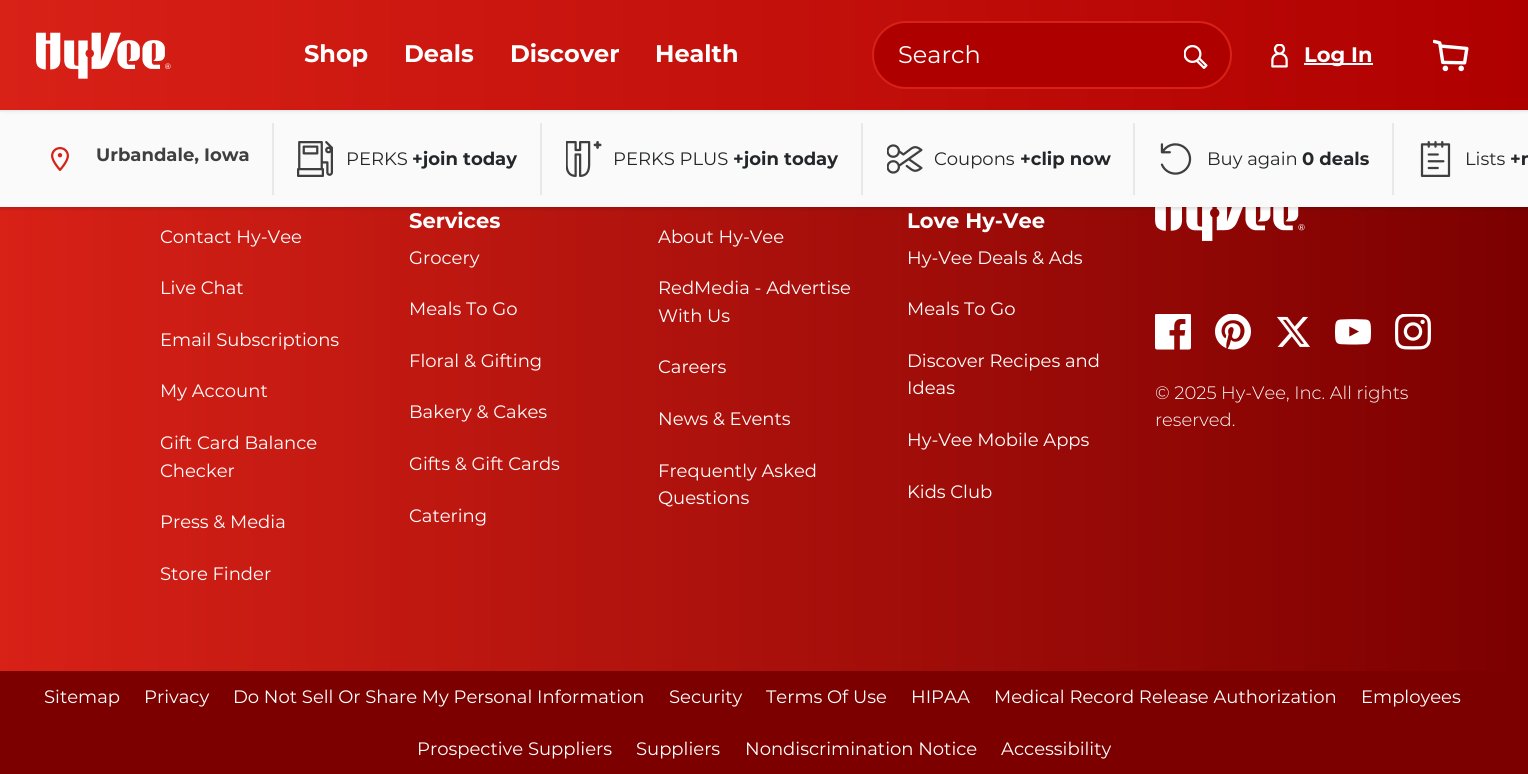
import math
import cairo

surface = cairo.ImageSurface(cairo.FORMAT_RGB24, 1528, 774)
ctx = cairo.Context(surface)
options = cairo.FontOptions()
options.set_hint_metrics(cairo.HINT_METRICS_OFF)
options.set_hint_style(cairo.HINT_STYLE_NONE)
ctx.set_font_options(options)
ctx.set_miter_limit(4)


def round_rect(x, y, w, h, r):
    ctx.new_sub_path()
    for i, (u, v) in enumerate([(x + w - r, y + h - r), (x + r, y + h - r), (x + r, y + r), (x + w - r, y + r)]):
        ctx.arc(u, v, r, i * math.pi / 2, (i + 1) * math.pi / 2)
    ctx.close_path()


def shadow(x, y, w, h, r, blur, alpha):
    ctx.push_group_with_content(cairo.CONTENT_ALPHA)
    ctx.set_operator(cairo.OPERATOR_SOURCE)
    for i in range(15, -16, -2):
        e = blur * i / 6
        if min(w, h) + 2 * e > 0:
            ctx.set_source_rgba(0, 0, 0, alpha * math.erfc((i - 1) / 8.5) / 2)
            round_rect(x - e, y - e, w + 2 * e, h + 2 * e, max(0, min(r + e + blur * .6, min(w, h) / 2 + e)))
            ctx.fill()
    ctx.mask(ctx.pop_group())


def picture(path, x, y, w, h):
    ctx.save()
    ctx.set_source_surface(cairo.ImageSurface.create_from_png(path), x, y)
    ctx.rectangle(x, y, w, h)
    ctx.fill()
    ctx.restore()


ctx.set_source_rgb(1, 1, 1)
ctx.paint()
gradient = cairo.LinearGradient(0, 55, 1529, 55)
gradient.add_color_stop_rgba(0, 0.847, 0.129, 0.09, 1)
gradient.add_color_stop_rgba(1, 0.686, 0, 0, 1)
ctx.set_source(gradient)
ctx.rectangle(0, 0, 1528, 110)
ctx.fill()
ctx.save()
ctx.set_fill_rule(cairo.FILL_RULE_EVEN_ODD)
ctx.new_path()
ctx.move_to(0, 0)
ctx.line_to(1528, 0)
ctx.line_to(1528, 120)
ctx.line_to(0, 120)
ctx.close_path()
ctx.move_to(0, 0)
ctx.line_to(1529, 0)
ctx.line_to(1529, 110)
ctx.line_to(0, 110)
ctx.close_path()
ctx.clip()
ctx.set_source_rgb(0, 0, 0)
shadow(3, 6, 1523, 104, 0, 3, 0.2)
ctx.restore()
picture("img1.png", 36, 32, 135, 47)
ctx.select_font_face("Montserrat", cairo.FONT_SLANT_NORMAL, cairo.FONT_WEIGHT_BOLD)
ctx.set_font_size(24)
ctx.set_source_rgb(1, 1, 1)
ctx.move_to(304, 62)
ctx.show_text("Shop")
ctx.move_to(404, 62)
ctx.show_text("Deals")
ctx.move_to(510, 62)
ctx.show_text("Discover")
ctx.move_to(655, 62)
ctx.show_text("Health")
ctx.set_source_rgb(0.686, 0, 0)
round_rect(873, 22, 358, 66, 33)
ctx.fill_preserve()
ctx.set_source_rgb(0.847, 0.129, 0.09)
ctx.stroke()
ctx.select_font_face("Montserrat")
ctx.set_source_rgb(1, 1, 1)
ctx.move_to(898, 63)
ctx.show_text("Search")
picture("img2.png", 1184, 45, 24, 24)
picture("img3.png", 1271, 44, 17, 24)
ctx.rectangle(1304, 63, 69, 2)
ctx.fill()
ctx.select_font_face("Montserrat", cairo.FONT_SLANT_NORMAL, cairo.FONT_WEIGHT_BOLD)
ctx.set_font_size(21)
ctx.move_to(1304, 62)
ctx.show_text("Log In")
picture("img4.png", 1433, 39, 36, 33)
ctx.set_source_rgb(0.91, 0.91, 0.91)
ctx.rectangle(0, 110, 1528, 2)
ctx.fill()
gradient = cairo.LinearGradient(0, 342, 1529, 342)
gradient.add_color_stop_rgba(0, 0.847, 0.129, 0.09, 1)
gradient.add_color_stop_rgba(1, 0.486, 0, 0, 1)
ctx.set_source(gradient)
ctx.rectangle(0, 207, 1528, 464)
ctx.fill()
picture("img11.png", 1155, 207, 150, 34)
ctx.save()
ctx.rectangle(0, 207, 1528, 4)
ctx.clip()
ctx.set_source_rgb(0, 0, 0)
shadow(0, 113, 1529, 96, 0, 2, 0.15)
ctx.restore()
ctx.set_source_rgba(0.961, 0.961, 0.961, 0.5)
ctx.rectangle(0, 111, 1528, 96)
ctx.fill()
picture("img5.png", 51, 147, 18, 24)
ctx.set_font_size(18)
ctx.set_source_rgb(0.247, 0.247, 0.247)
ctx.move_to(96, 161)
ctx.show_text("Urbandale, Iowa")
ctx.set_source_rgb(0.91, 0.91, 0.91)
ctx.rectangle(272, 123, 2, 72)
ctx.fill()
picture("img6.png", 297, 141, 36, 36)
ctx.select_font_face("Montserrat")
ctx.set_source_rgb(0.141, 0.153, 0.161)
ctx.move_to(346, 165)
ctx.show_text("PERKS")
ctx.select_font_face("Montserrat", cairo.FONT_SLANT_NORMAL, cairo.FONT_WEIGHT_BOLD)
ctx.move_to(412, 165)
ctx.show_text("+join today")
ctx.set_source_rgb(0.91, 0.91, 0.91)
ctx.rectangle(540, 123, 2, 72)
ctx.fill()
picture("img7.png", 566, 141, 36, 36)
ctx.select_font_face("Montserrat")
ctx.set_source_rgb(0.141, 0.153, 0.161)
ctx.move_to(613, 165)
ctx.show_text("PERKS PLUS")
ctx.select_font_face("Montserrat", cairo.FONT_SLANT_NORMAL, cairo.FONT_WEIGHT_BOLD)
ctx.move_to(733, 165)
ctx.show_text("+join today")
ctx.set_source_rgb(0.91, 0.91, 0.91)
ctx.rectangle(861, 123, 2, 72)
ctx.fill()
picture("img8.png", 887, 144, 36, 30)
ctx.select_font_face("Montserrat")
ctx.set_source_rgb(0.141, 0.153, 0.161)
ctx.move_to(934, 165)
ctx.show_text("Coupons")
ctx.select_font_face("Montserrat", cairo.FONT_SLANT_NORMAL, cairo.FONT_WEIGHT_BOLD)
ctx.move_to(1020, 165)
ctx.show_text("+clip now")
ctx.set_source_rgb(0.91, 0.91, 0.91)
ctx.rectangle(1133, 123, 2, 72)
ctx.fill()
picture("img9.png", 1160, 143, 32, 32)
ctx.select_font_face("Montserrat")
ctx.set_source_rgb(0.141, 0.153, 0.161)
ctx.move_to(1207, 165)
ctx.show_text("Buy again")
ctx.select_font_face("Montserrat", cairo.FONT_SLANT_NORMAL, cairo.FONT_WEIGHT_BOLD)
ctx.move_to(1302, 165)
ctx.show_text("0 deals")
ctx.set_source_rgb(0.91, 0.91, 0.91)
ctx.rectangle(1392, 123, 2, 72)
ctx.fill()
picture("img10.png", 1420, 141, 31, 36)
ctx.select_font_face("Montserrat")
ctx.set_source_rgb(0.141, 0.153, 0.161)
ctx.move_to(1465, 165)
ctx.show_text("Lists")
ctx.select_font_face("Montserrat", cairo.FONT_SLANT_NORMAL, cairo.FONT_WEIGHT_BOLD)
ctx.move_to(1510, 165)
ctx.show_text("+n")
ctx.select_font_face("Montserrat")
ctx.set_source_rgb(1, 1, 1)
ctx.move_to(160, 243)
ctx.show_text("Contact Hy-Vee")
ctx.move_to(160, 294)
ctx.show_text("Live Chat")
ctx.move_to(160, 346)
ctx.show_text("Email Subscriptions")
ctx.move_to(160, 397)
ctx.show_text("My Account")
ctx.move_to(160, 449)
ctx.show_text("Gift Card Balance")
ctx.move_to(160, 477)
ctx.show_text("Checker")
ctx.move_to(160, 528)
ctx.show_text("Press & Media")
ctx.move_to(160, 580)
ctx.show_text("Store Finder")
ctx.select_font_face("Montserrat", cairo.FONT_SLANT_NORMAL, cairo.FONT_WEIGHT_BOLD)
ctx.set_font_size(21)
ctx.move_to(409, 228)
ctx.show_text("Services")
ctx.select_font_face("Montserrat")
ctx.set_font_size(18)
ctx.move_to(409, 264)
ctx.show_text("Grocery")
ctx.move_to(409, 315)
ctx.show_text("Meals To Go")
ctx.move_to(409, 367)
ctx.show_text("Floral & Gifting")
ctx.move_to(409, 418)
ctx.show_text("Bakery & Cakes")
ctx.move_to(409, 470)
ctx.show_text("Gifts & Gift Cards")
ctx.move_to(409, 522)
ctx.show_text("Catering")
ctx.move_to(658, 243)
ctx.show_text("About Hy-Vee")
ctx.move_to(658, 294)
ctx.show_text("RedMedia - Advertise")
ctx.move_to(658, 322)
ctx.show_text("With Us")
ctx.move_to(658, 373)
ctx.show_text("Careers")
ctx.move_to(658, 425)
ctx.show_text("News & Events")
ctx.move_to(658, 477)
ctx.show_text("Frequently Asked")
ctx.move_to(658, 504)
ctx.show_text("Questions")
ctx.select_font_face("Montserrat", cairo.FONT_SLANT_NORMAL, cairo.FONT_WEIGHT_BOLD)
ctx.set_font_size(21)
ctx.move_to(907, 228)
ctx.show_text("Love Hy-Vee")
ctx.select_font_face("Montserrat")
ctx.set_font_size(18)
ctx.move_to(907, 264)
ctx.show_text("Hy-Vee Deals & Ads")
ctx.move_to(907, 315)
ctx.show_text("Meals To Go")
ctx.move_to(907, 367)
ctx.show_text("Discover Recipes and")
ctx.move_to(907, 394)
ctx.show_text("Ideas")
ctx.move_to(907, 446)
ctx.show_text("Hy-Vee Mobile Apps")
ctx.move_to(907, 498)
ctx.show_text("Kids Club")
picture("img12.png", 1155, 314, 36, 36)
picture("img13.png", 1215, 314, 36, 36)
picture("img14.png", 1277, 316, 33, 31)
picture("img15.png", 1335, 319, 36, 26)
picture("img16.png", 1395, 314, 36, 36)
ctx.select_font_face("Montserrat Light")
ctx.move_to(1155, 399)
ctx.show_text("© 2025 Hy-Vee, Inc. All rights")
ctx.move_to(1155, 426)
ctx.show_text("reserved.")
ctx.set_source_rgb(0.486, 0, 0)
ctx.rectangle(0, 671, 1528, 103)
ctx.fill()
ctx.select_font_face("Montserrat")
ctx.set_source_rgb(1, 1, 1)
ctx.move_to(44, 703)
ctx.show_text("Sitemap")
ctx.move_to(144, 703)
ctx.show_text("Privacy")
ctx.move_to(233, 703)
ctx.show_text("Do Not Sell Or Share My Personal Information")
ctx.move_to(669, 703)
ctx.show_text("Security")
ctx.move_to(766, 703)
ctx.show_text("Terms Of Use")
ctx.move_to(911, 703)
ctx.show_text("HIPAA")
ctx.move_to(994, 703)
ctx.show_text("Medical Record Release Authorization")
ctx.move_to(1361, 703)
ctx.show_text("Employees")
ctx.move_to(417, 755)
ctx.show_text("Prospective Suppliers")
ctx.move_to(636, 755)
ctx.show_text("Suppliers")
ctx.move_to(745, 755)
ctx.show_text("Nondiscrimination Notice")
ctx.move_to(1001, 755)
ctx.show_text("Accessibility")
surface.write_to_png("page.png")
